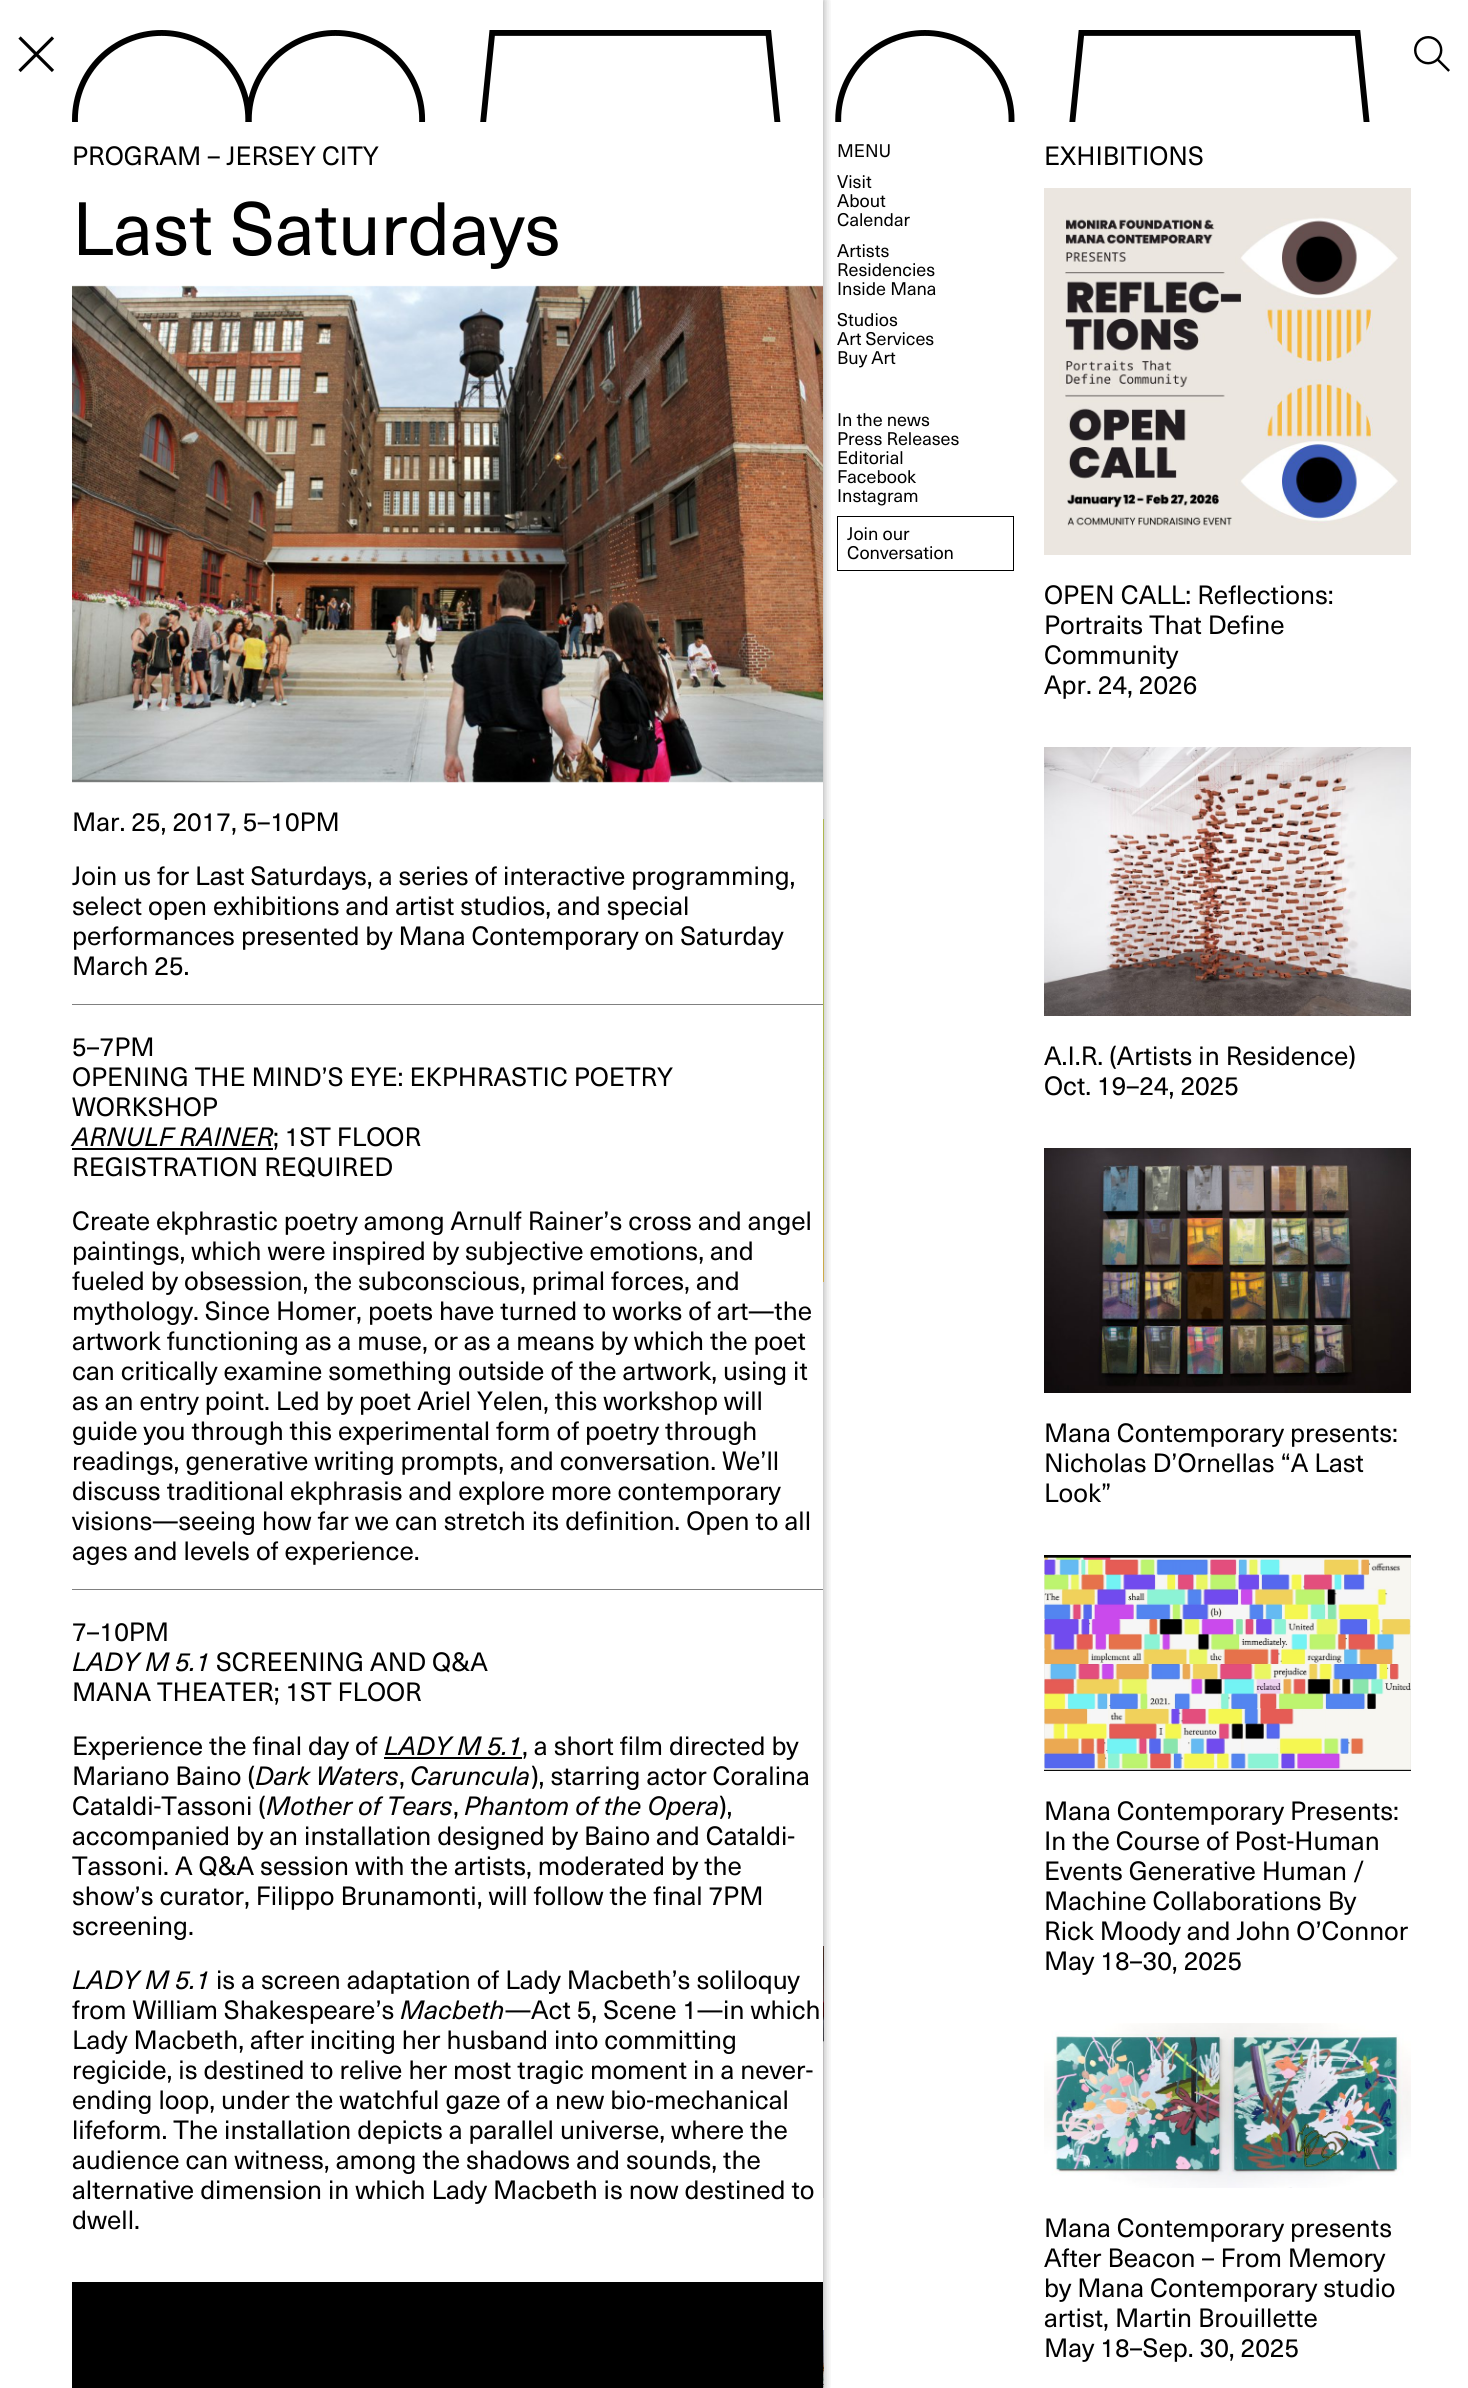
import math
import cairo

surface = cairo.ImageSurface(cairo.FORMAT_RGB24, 1468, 2388)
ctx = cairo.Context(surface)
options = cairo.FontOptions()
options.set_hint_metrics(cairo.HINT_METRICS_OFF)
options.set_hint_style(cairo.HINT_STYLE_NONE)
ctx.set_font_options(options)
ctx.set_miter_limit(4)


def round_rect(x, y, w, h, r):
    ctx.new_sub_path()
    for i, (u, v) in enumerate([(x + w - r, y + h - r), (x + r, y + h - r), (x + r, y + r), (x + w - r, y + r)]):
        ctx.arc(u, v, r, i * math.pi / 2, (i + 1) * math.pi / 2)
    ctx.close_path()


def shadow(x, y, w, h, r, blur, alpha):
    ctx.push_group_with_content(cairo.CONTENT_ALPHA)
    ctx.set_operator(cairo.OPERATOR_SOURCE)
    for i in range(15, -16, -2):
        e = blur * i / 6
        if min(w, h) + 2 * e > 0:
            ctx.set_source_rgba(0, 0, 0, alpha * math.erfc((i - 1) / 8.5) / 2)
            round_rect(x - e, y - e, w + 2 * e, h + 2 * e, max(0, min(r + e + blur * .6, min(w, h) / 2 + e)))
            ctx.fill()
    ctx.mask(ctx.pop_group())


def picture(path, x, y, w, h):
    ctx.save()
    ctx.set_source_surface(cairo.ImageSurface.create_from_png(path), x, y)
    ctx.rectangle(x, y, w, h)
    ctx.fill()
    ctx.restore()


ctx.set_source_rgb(1, 1, 1)
ctx.paint()
picture("img1.png", 835, 30, 535, 92)
picture("img2.png", 1414, 36, 36, 36)
picture("img3.png", 72, 30, 709, 92)
picture("img5.png", 823, 819, 1, 463)
picture("img6.png", 823, 1946, 1, 252)
picture("img7.png", 823, 2330, 1, 58)
ctx.rectangle(837.5, 516.5, 176, 54)
ctx.set_source_rgb(0, 0, 0)
ctx.set_line_width(1)
ctx.stroke()
ctx.save()
ctx.rectangle(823, 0, 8, 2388)
ctx.clip()
ctx.set_source_rgb(0, 0, 0)
shadow(0, 0, 823, 2388, 0, 5, 0.4)
ctx.restore()
ctx.new_path()
ctx.move_to(19.5, 37.5)
ctx.line_to(53, 71)
ctx.move_to(53, 37.5)
ctx.line_to(19.5, 71)
ctx.set_line_width(3.2)
ctx.stroke()
ctx.select_font_face("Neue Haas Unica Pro")
ctx.set_font_size(26)
ctx.move_to(72, 165)
ctx.show_text("PROGRAM – JERSEY CITY")
ctx.set_font_size(74)
ctx.move_to(72, 255)
ctx.show_text("Last Saturdays")
picture("img4.png", 72, 285, 751, 498)
ctx.set_font_size(26)
ctx.move_to(72, 831)
ctx.show_text("Mar. 25, 2017, 5–10PM")
ctx.move_to(72, 885)
ctx.show_text("Join us for Last Saturdays, a series of interactive programming,")
ctx.move_to(72, 915)
ctx.show_text("select open exhibitions and artist studios, and special")
ctx.move_to(72, 945)
ctx.show_text("performances presented by Mana Contemporary on Saturday")
ctx.move_to(72, 975)
ctx.show_text("March 25.")
ctx.set_source_rgb(0.502, 0.502, 0.502)
ctx.rectangle(72, 1004, 751, 1)
ctx.fill()
ctx.set_source_rgb(0, 0, 0)
ctx.move_to(72, 1056)
ctx.show_text("5–7PM")
ctx.move_to(72, 1086)
ctx.show_text("OPENING THE MIND’S EYE: EKPHRASTIC POETRY")
ctx.move_to(72, 1116)
ctx.show_text("WORKSHOP")
ctx.select_font_face("Neue Haas Unica Pro", cairo.FONT_SLANT_ITALIC)
ctx.move_to(72, 1146)
ctx.show_text("ARNULF RAINER")
ctx.select_font_face("Neue Haas Unica Pro")
ctx.move_to(273, 1146)
ctx.show_text("; 1ST FLOOR")
ctx.rectangle(72, 1148, 201, 2)
ctx.fill()
ctx.move_to(72, 1176)
ctx.show_text("REGISTRATION REQUIRED")
ctx.move_to(72, 1230)
ctx.show_text("Create ekphrastic poetry among Arnulf Rainer’s cross and angel")
ctx.move_to(72, 1260)
ctx.show_text("paintings, which were inspired by subjective emotions, and")
ctx.move_to(72, 1290)
ctx.show_text("fueled by obsession, the subconscious, primal forces, and")
ctx.move_to(72, 1320)
ctx.show_text("mythology. Since Homer, poets have turned to works of art—the")
ctx.move_to(72, 1350)
ctx.show_text("artwork functioning as a muse, or as a means by which the poet")
ctx.move_to(72, 1380)
ctx.show_text("can critically examine something outside of the artwork, using it")
ctx.move_to(72, 1410)
ctx.show_text("as an entry point. Led by poet Ariel Yelen, this workshop will")
ctx.move_to(72, 1440)
ctx.show_text("guide you through this experimental form of poetry through")
ctx.move_to(72, 1470)
ctx.show_text("readings, generative writing prompts, and conversation. We’ll")
ctx.move_to(72, 1500)
ctx.show_text("discuss traditional ekphrasis and explore more contemporary")
ctx.move_to(72, 1530)
ctx.show_text("visions—seeing how far we can stretch its definition. Open to all")
ctx.move_to(72, 1560)
ctx.show_text("ages and levels of experience.")
ctx.set_source_rgb(0.502, 0.502, 0.502)
ctx.rectangle(72, 1589, 751, 1)
ctx.fill()
ctx.set_source_rgb(0, 0, 0)
ctx.move_to(72, 1641)
ctx.show_text("7–10PM")
ctx.select_font_face("Neue Haas Unica Pro", cairo.FONT_SLANT_ITALIC)
ctx.move_to(72, 1671)
ctx.show_text("LADY M 5.1")
ctx.select_font_face("Neue Haas Unica Pro")
ctx.move_to(216, 1671)
ctx.show_text("SCREENING AND Q&A")
ctx.move_to(72, 1701)
ctx.show_text("MANA THEATER; 1ST FLOOR")
ctx.move_to(72, 1755)
ctx.show_text("Experience the final day of")
ctx.select_font_face("Neue Haas Unica Pro", cairo.FONT_SLANT_ITALIC)
ctx.move_to(384, 1755)
ctx.show_text("LADY M 5.1")
ctx.rectangle(384, 1757, 138, 2)
ctx.fill()
ctx.select_font_face("Neue Haas Unica Pro")
ctx.move_to(522, 1755)
ctx.show_text(", a short film directed by")
ctx.move_to(72, 1785)
ctx.show_text("Mariano Baino (")
ctx.select_font_face("Neue Haas Unica Pro", cairo.FONT_SLANT_ITALIC)
ctx.move_to(255, 1785)
ctx.show_text("Dark Waters")
ctx.select_font_face("Neue Haas Unica Pro")
ctx.move_to(399, 1785)
ctx.show_text(",")
ctx.select_font_face("Neue Haas Unica Pro", cairo.FONT_SLANT_ITALIC)
ctx.move_to(410, 1785)
ctx.show_text("Caruncula")
ctx.select_font_face("Neue Haas Unica Pro")
ctx.move_to(531, 1785)
ctx.show_text("), starring actor Coralina")
ctx.move_to(72, 1815)
ctx.show_text("Cataldi-Tassoni (")
ctx.select_font_face("Neue Haas Unica Pro", cairo.FONT_SLANT_ITALIC)
ctx.move_to(266, 1815)
ctx.show_text("Mother of Tears")
ctx.select_font_face("Neue Haas Unica Pro")
ctx.move_to(453, 1815)
ctx.show_text(",")
ctx.select_font_face("Neue Haas Unica Pro", cairo.FONT_SLANT_ITALIC)
ctx.move_to(464, 1815)
ctx.show_text("Phantom of the Opera")
ctx.select_font_face("Neue Haas Unica Pro")
ctx.move_to(719, 1815)
ctx.show_text("),")
ctx.move_to(72, 1845)
ctx.show_text("accompanied by an installation designed by Baino and Cataldi-")
ctx.move_to(72, 1875)
ctx.show_text("Tassoni. A Q&A session with the artists, moderated by the")
ctx.move_to(72, 1905)
ctx.show_text("show’s curator, Filippo Brunamonti, will follow the final 7PM")
ctx.move_to(72, 1935)
ctx.show_text("screening.")
ctx.select_font_face("Neue Haas Unica Pro", cairo.FONT_SLANT_ITALIC)
ctx.move_to(72, 1989)
ctx.show_text("LADY M 5.1")
ctx.select_font_face("Neue Haas Unica Pro")
ctx.move_to(216, 1989)
ctx.show_text("is a screen adaptation of Lady Macbeth’s soliloquy")
ctx.move_to(72, 2019)
ctx.show_text("from William Shakespeare’s")
ctx.select_font_face("Neue Haas Unica Pro", cairo.FONT_SLANT_ITALIC)
ctx.move_to(400, 2019)
ctx.show_text("Macbeth")
ctx.select_font_face("Neue Haas Unica Pro")
ctx.move_to(505, 2019)
ctx.show_text("—Act 5, Scene 1—in which")
ctx.move_to(72, 2049)
ctx.show_text("Lady Macbeth, after inciting her husband into committing")
ctx.move_to(72, 2079)
ctx.show_text("regicide, is destined to relive her most tragic moment in a never-")
ctx.move_to(72, 2109)
ctx.show_text("ending loop, under the watchful gaze of a new bio-mechanical")
ctx.move_to(72, 2139)
ctx.show_text("lifeform. The installation depicts a parallel universe, where the")
ctx.move_to(72, 2169)
ctx.show_text("audience can witness, among the shadows and sounds, the")
ctx.move_to(72, 2199)
ctx.show_text("alternative dimension in which Lady Macbeth is now destined to")
ctx.move_to(72, 2229)
ctx.show_text("dwell.")
ctx.rectangle(72, 2282, 751, 106)
ctx.fill()
ctx.set_font_size(18)
ctx.move_to(837, 157)
ctx.show_text("MENU")
ctx.move_to(837, 188)
ctx.show_text("Visit")
ctx.move_to(837, 207)
ctx.show_text("About")
ctx.move_to(837, 226)
ctx.show_text("Calendar")
ctx.move_to(837, 257)
ctx.show_text("Artists")
ctx.move_to(837, 276)
ctx.show_text("Residencies")
ctx.move_to(837, 295)
ctx.show_text("Inside Mana")
ctx.move_to(837, 326)
ctx.show_text("Studios")
ctx.move_to(837, 345)
ctx.show_text("Art Services")
ctx.move_to(837, 364)
ctx.show_text("Buy Art")
ctx.move_to(837, 426)
ctx.show_text("In the news")
ctx.move_to(837, 445)
ctx.show_text("Press Releases")
ctx.move_to(837, 464)
ctx.show_text("Editorial")
ctx.move_to(837, 483)
ctx.show_text("Facebook")
ctx.move_to(837, 502)
ctx.show_text("Instagram")
ctx.move_to(847, 540)
ctx.show_text("Join our")
ctx.move_to(847, 559)
ctx.show_text("Conversation")
ctx.set_font_size(26)
ctx.move_to(1044, 165)
ctx.show_text("EXHIBITIONS")
picture("img8.png", 1044, 188, 367, 367)
ctx.move_to(1044, 604)
ctx.show_text("OPEN CALL: Reflections:")
ctx.move_to(1044, 634)
ctx.show_text("Portraits That Define")
ctx.move_to(1044, 664)
ctx.show_text("Community")
ctx.move_to(1044, 694)
ctx.show_text("Apr. 24, 2026")
picture("img9.png", 1044, 747, 367, 269)
ctx.move_to(1044, 1065)
ctx.show_text("A.I.R. (Artists in Residence)")
ctx.move_to(1044, 1095)
ctx.show_text("Oct. 19–24, 2025")
picture("img10.png", 1044, 1148, 367, 245)
ctx.move_to(1044, 1442)
ctx.show_text("Mana Contemporary presents:")
ctx.move_to(1044, 1472)
ctx.show_text("Nicholas D’Ornellas “A Last")
ctx.move_to(1044, 1502)
ctx.show_text("Look”")
picture("img11.png", 1044, 1555, 367, 216)
ctx.move_to(1044, 1820)
ctx.show_text("Mana Contemporary Presents:")
ctx.move_to(1044, 1850)
ctx.show_text("In the Course of Post-Human")
ctx.move_to(1044, 1880)
ctx.show_text("Events Generative Human /")
ctx.move_to(1044, 1910)
ctx.show_text("Machine Collaborations By")
ctx.move_to(1044, 1940)
ctx.show_text("Rick Moody and John O’Connor")
ctx.move_to(1044, 1970)
ctx.show_text("May 18–30, 2025")
picture("img12.png", 1044, 2023, 367, 165)
ctx.move_to(1044, 2237)
ctx.show_text("Mana Contemporary presents")
ctx.move_to(1044, 2267)
ctx.show_text("After Beacon – From Memory")
ctx.move_to(1044, 2297)
ctx.show_text("by Mana Contemporary studio")
ctx.move_to(1044, 2327)
ctx.show_text("artist, Martin Brouillette")
ctx.move_to(1044, 2357)
ctx.show_text("May 18–Sep. 30, 2025")
surface.write_to_png("page.png")
